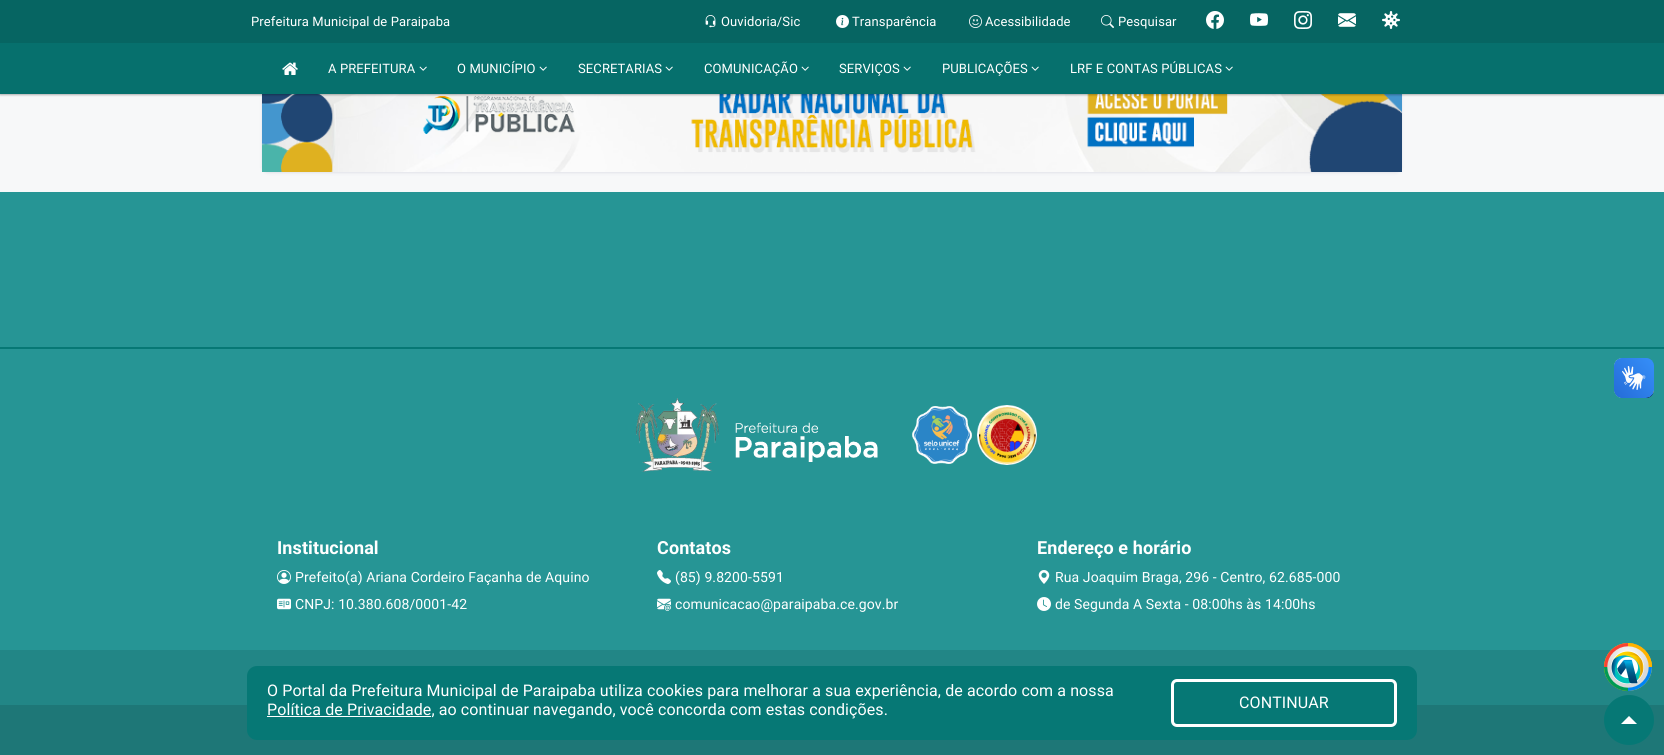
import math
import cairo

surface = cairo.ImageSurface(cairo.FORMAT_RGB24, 1664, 755)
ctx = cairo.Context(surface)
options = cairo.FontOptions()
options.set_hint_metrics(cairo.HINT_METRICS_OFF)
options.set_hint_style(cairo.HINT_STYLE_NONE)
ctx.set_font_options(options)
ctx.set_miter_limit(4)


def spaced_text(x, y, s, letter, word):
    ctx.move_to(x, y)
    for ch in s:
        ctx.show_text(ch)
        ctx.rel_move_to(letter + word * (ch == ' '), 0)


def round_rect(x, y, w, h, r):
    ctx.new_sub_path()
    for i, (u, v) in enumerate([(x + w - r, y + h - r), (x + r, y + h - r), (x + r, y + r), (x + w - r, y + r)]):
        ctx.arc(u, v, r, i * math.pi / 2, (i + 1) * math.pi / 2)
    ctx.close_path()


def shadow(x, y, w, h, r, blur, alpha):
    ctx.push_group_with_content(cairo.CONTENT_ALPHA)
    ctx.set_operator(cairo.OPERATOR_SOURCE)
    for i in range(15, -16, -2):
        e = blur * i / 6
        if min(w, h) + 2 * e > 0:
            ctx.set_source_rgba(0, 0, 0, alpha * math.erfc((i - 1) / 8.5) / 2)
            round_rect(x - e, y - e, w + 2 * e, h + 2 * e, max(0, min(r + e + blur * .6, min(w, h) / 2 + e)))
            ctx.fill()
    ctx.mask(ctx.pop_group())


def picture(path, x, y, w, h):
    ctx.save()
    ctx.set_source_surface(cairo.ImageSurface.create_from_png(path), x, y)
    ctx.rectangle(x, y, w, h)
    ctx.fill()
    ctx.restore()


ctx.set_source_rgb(0.965, 0.969, 0.973)
ctx.paint()
ctx.set_source_rgb(0.012, 0, 0.278)
shadow(262, 59, 1140, 114, 6, 1.5, 0.09)
picture("img12.png", 262, 94, 1140, 78)
ctx.set_source_rgb(0, 0, 0)
shadow(0, 1, 1664, 94, 0, 1, 0.3)
ctx.set_source_rgb(0.024, 0.396, 0.384)
ctx.rectangle(0, 0, 1664, 43)
ctx.fill()
ctx.select_font_face("Roboto")
ctx.set_font_size(13)
ctx.set_source_rgb(1, 1, 1)
spaced_text(251, 26, "Prefeitura Municipal de Paraipaba", 0.1, 0)
picture("img1.png", 705, 15, 11, 13)
spaced_text(721, 26, "Ouvidoria/Sic", 0.1, 0)
picture("img2.png", 836, 15, 13, 13)
spaced_text(852, 26, "Transparência", 0.1, 0)
picture("img3.png", 969, 15, 13, 13)
spaced_text(985, 26, "Acessibilidade", 0.1, 0)
picture("img4.png", 1101, 15, 13, 13)
spaced_text(1118, 26, "Pesquisar", 0.1, 0)
picture("img5.png", 1206, 11, 18, 18)
picture("img6.png", 1250, 13, 18, 13)
picture("img7.png", 1294, 11, 18, 18)
picture("img8.png", 1338, 13, 18, 14)
picture("img9.png", 1382, 11, 18, 18)
ctx.set_source_rgb(0.027, 0.439, 0.427)
ctx.rectangle(0, 43, 1664, 51)
ctx.fill()
picture("img10.png", 282, 62, 16, 13)
ctx.set_source_rgb(1, 1, 1)
spaced_text(328, 73, "A PREFEITURA", 0.1, 0)
picture("img11.png", 419, 66, 8, 5)
spaced_text(457, 73, "O MUNICÍPIO", 0.1, 0)
picture("img11.png", 539, 66, 8, 5)
spaced_text(578, 73, "SECRETARIAS", 0.1, 0)
picture("img11.png", 665, 66, 8, 5)
spaced_text(704, 73, "COMUNICAÇÃO", 0.1, 0)
picture("img11.png", 801, 66, 8, 5)
spaced_text(839, 73, "SERVIÇOS", 0.1, 0)
picture("img11.png", 903, 66, 8, 5)
spaced_text(942, 73, "PUBLICAÇÕES", 0.1, 0)
picture("img11.png", 1031, 66, 8, 5)
spaced_text(1070, 73, "LRF E CONTAS PÚBLICAS", 0.1, 0)
picture("img11.png", 1225, 66, 8, 5)
ctx.set_source_rgb(0.149, 0.584, 0.584)
ctx.rectangle(0, 192, 1664, 458)
ctx.fill()
ctx.set_source_rgb(0.027, 0.471, 0.459)
ctx.rectangle(0, 347, 1664, 2)
ctx.fill()
picture("img13.png", 636, 398, 242, 74)
picture("img14.png", 912, 406, 60, 58)
picture("img15.png", 977, 405, 60, 60)
picture("img16.png", 1614, 358, 40, 40)
picture("img17.png", 1614, 358, 40, 40)
ctx.select_font_face("Roboto", cairo.FONT_SLANT_NORMAL, cairo.FONT_WEIGHT_BOLD)
ctx.set_font_size(18)
ctx.set_source_rgb(1, 1, 1)
spaced_text(277, 554, "Institucional", 0.1, 0)
picture("img18.png", 277, 570, 14, 14)
ctx.select_font_face("Roboto")
ctx.set_font_size(14)
spaced_text(295, 582, "Prefeito(a) Ariana Cordeiro Façanha de Aquino", 0.1, 0)
picture("img19.png", 277, 598, 14, 12)
spaced_text(295, 609, "CNPJ: 10.380.608/0001-42", 0.1, 0)
ctx.select_font_face("Roboto", cairo.FONT_SLANT_NORMAL, cairo.FONT_WEIGHT_BOLD)
ctx.set_font_size(18)
spaced_text(657, 554, "Contatos", 0.1, 0)
picture("img20.png", 657, 570, 14, 14)
ctx.select_font_face("Roboto")
ctx.set_font_size(14)
spaced_text(675, 582, "(85) 9.8200-5591", 0.1, 0)
picture("img21.png", 657, 598, 14, 13)
spaced_text(675, 609, "comunicacao@paraipaba.ce.gov.br", 0.1, 0)
ctx.select_font_face("Roboto", cairo.FONT_SLANT_NORMAL, cairo.FONT_WEIGHT_BOLD)
ctx.set_font_size(18)
spaced_text(1037, 554, "Endereço e horário", 0.1, 0)
picture("img22.png", 1038, 570, 12, 14)
ctx.select_font_face("Roboto")
ctx.set_font_size(14)
spaced_text(1055, 582, "Rua Joaquim Braga, 296 - Centro, 62.685-000", 0.1, 0)
picture("img23.png", 1037, 597, 14, 14)
spaced_text(1055, 609, "de Segunda A Sexta - 08:00hs às 14:00hs", 0.1, 0)
ctx.set_source_rgb(0.133, 0.525, 0.525)
ctx.rectangle(0, 650, 1664, 55)
ctx.fill()
picture("img24.png", 1604, 643, 48, 48)
ctx.set_source_rgb(0.118, 0.467, 0.467)
ctx.rectangle(0, 705, 1664, 50)
ctx.fill()
ctx.set_source_rgb(0.027, 0.471, 0.459)
round_rect(247, 666, 1170, 74, 10)
ctx.fill()
ctx.set_font_size(16)
ctx.set_source_rgb(1, 1, 1)
spaced_text(267, 696, "O Portal da Prefeitura Municipal de Paraipaba utiliza cookies para melhorar a sua experiência, de acordo com a nossa", 0.1, 0)
ctx.rectangle(267, 716, 164, 1)
ctx.fill()
spaced_text(267, 715, "Política de Privacidade, ao continuar navegando, você concorda com estas condições.", 0.1, 0)
round_rect(1172.5, 680.5, 223, 45, 4.5)
ctx.set_line_width(3)
ctx.stroke()
spaced_text(1239, 708, "CONTINUAR", 0.1, 0)
ctx.set_source_rgb(0.027, 0.471, 0.459)
ctx.new_path()
ctx.arc(1629, 720, 25, 0, 2 * math.pi)
ctx.fill()
ctx.set_source_rgb(1, 1, 1)
ctx.new_path()
ctx.move_to(1637, 724)
ctx.line_to(1621, 724)
ctx.line_to(1629, 716)
ctx.close_path()
ctx.fill()
surface.write_to_png("page.png")
